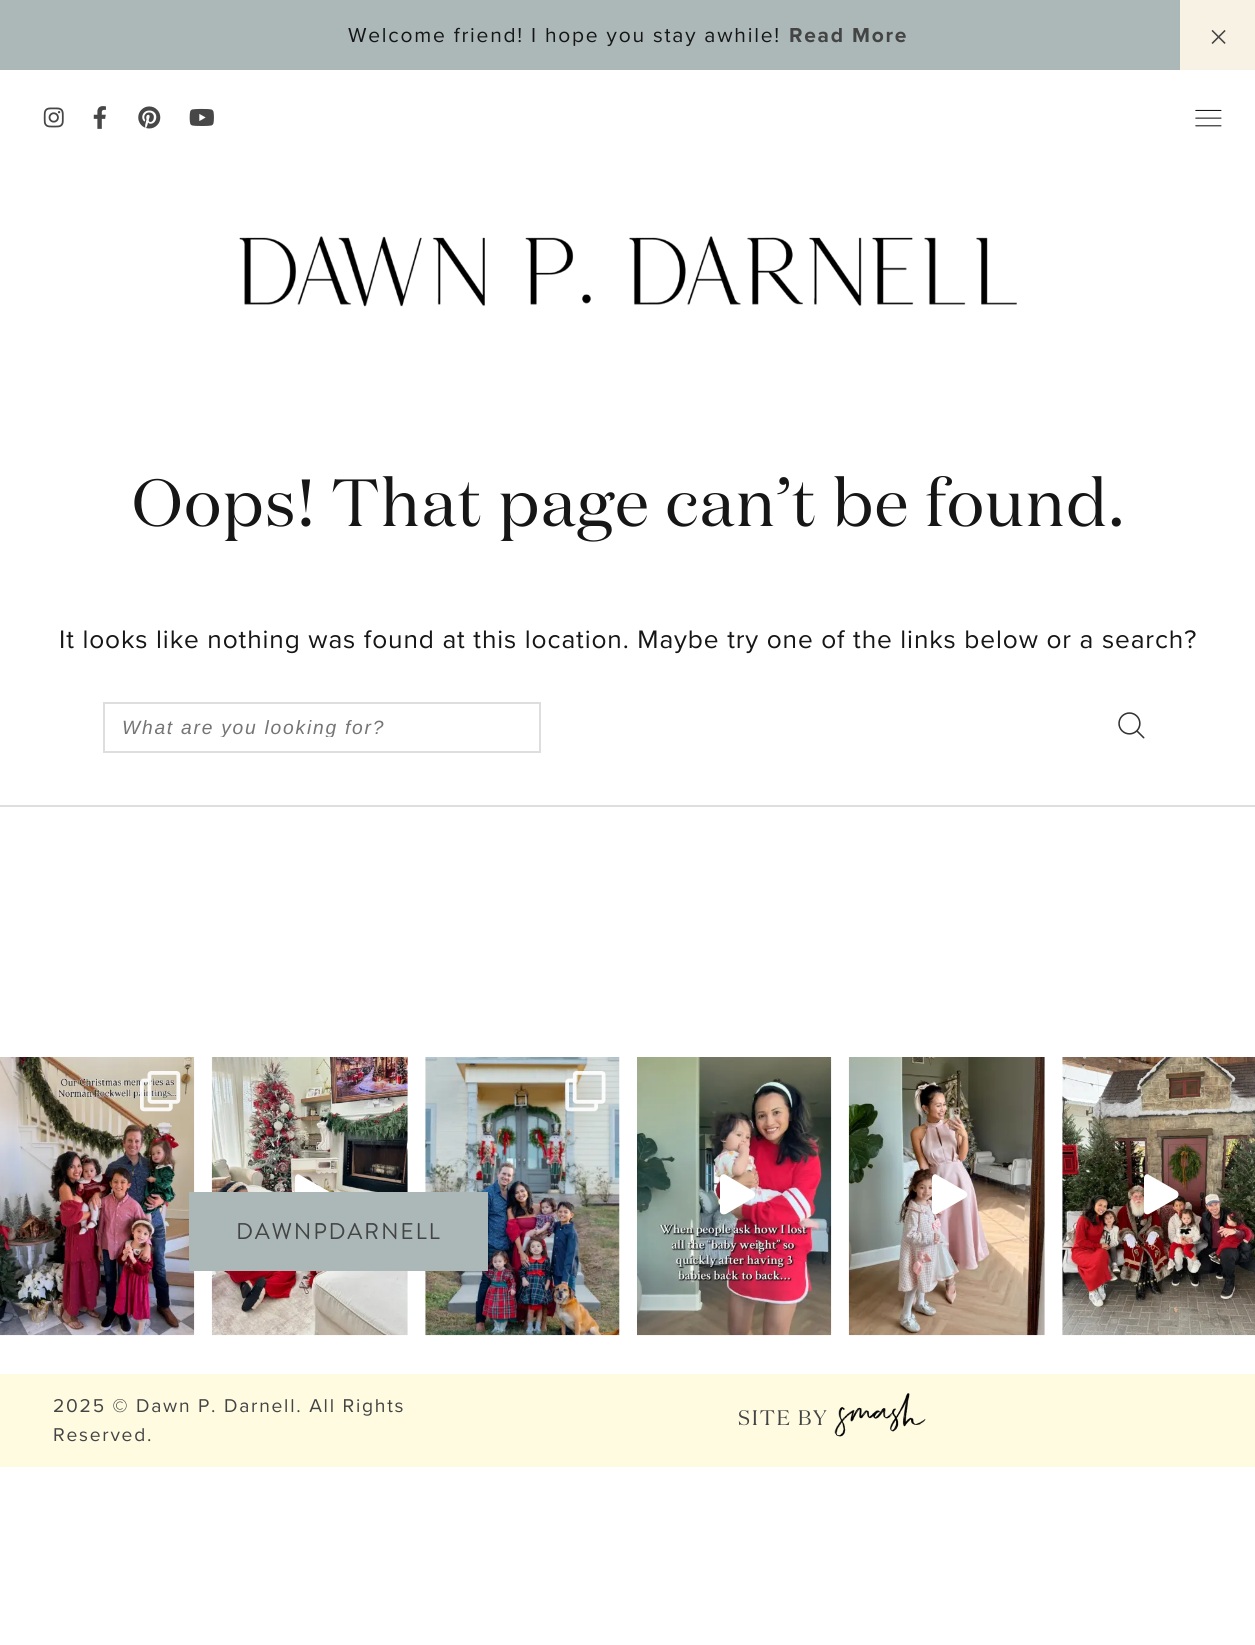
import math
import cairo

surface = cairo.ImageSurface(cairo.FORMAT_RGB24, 1255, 1645)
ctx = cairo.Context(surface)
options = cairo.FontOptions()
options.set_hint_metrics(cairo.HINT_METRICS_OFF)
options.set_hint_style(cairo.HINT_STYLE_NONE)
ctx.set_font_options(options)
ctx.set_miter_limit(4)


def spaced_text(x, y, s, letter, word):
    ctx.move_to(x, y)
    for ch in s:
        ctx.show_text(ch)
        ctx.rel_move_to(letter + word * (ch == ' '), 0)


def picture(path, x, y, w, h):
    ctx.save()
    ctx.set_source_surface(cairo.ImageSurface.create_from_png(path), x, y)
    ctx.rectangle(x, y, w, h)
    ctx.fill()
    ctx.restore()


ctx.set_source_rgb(1, 1, 1)
ctx.paint()
ctx.set_source_rgb(0.675, 0.722, 0.722)
ctx.rectangle(0, 0, 1180, 70)
ctx.fill()
ctx.select_font_face("Proxima Nova")
ctx.set_font_size(21)
ctx.set_source_rgb(0.086, 0.086, 0.086)
spaced_text(348, 42, "Welcome friend! I hope you stay awhile!", 1.75, 0)
ctx.select_font_face("Proxima Nova", cairo.FONT_SLANT_NORMAL, cairo.FONT_WEIGHT_BOLD)
ctx.set_source_rgb(0.267, 0.267, 0.267)
spaced_text(789, 42, "Read More", 1.75, 0)
ctx.set_source_rgb(0.965, 0.949, 0.89)
ctx.rectangle(1180, 0, 75, 70)
ctx.fill()
picture("img1.png", 1211, 29, 15, 15)
picture("img2.png", 43, 107, 21, 21)
picture("img3.png", 93, 106, 13, 23)
picture("img4.png", 138, 106, 23, 23)
picture("img5.png", 189, 108, 25, 18)
picture("img6.png", 1195, 109, 27, 18)
picture("img7.png", 239, 236, 778, 71)
ctx.select_font_face("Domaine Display")
ctx.set_font_size(66.5)
ctx.set_source_rgb(0.086, 0.086, 0.086)
spaced_text(132, 526, "Oops! That page can’t be found.", 1.75, 0)
ctx.select_font_face("Proxima Nova")
ctx.set_font_size(26.25)
spaced_text(59, 648, "It looks like nothing was found at this location. Maybe try one of the links below or a search?", 0.88, 0)
ctx.rectangle(104, 703, 436, 49)
ctx.set_source_rgb(0.871, 0.871, 0.871)
ctx.stroke()
ctx.save()
ctx.rectangle(123, 716, 372, 21)
ctx.clip()
ctx.select_font_face("Liberation Sans", cairo.FONT_SLANT_ITALIC)
ctx.set_font_size(19.25)
ctx.set_source_rgb(0.459, 0.459, 0.459)
spaced_text(122, 734, "What are you looking for?", 1.75, 0)
ctx.restore()
picture("img8.png", 1118, 712, 27, 27)
ctx.rectangle(0, 805, 1255, 2)
ctx.fill()
picture("img9.png", 0, 1057, 195, 279)
picture("img10.png", 140, 1071, 41, 41)
picture("img11.png", 211, 1057, 197, 279)
ctx.set_source_rgb(1, 1, 1)
ctx.new_path()
ctx.move_to(328, 1191)
ctx.line_to(300, 1175)
ctx.curve_to(298, 1173, 295, 1175, 295, 1178)
ctx.line_to(295, 1211)
ctx.curve_to(295, 1214, 298, 1215, 300, 1214)
ctx.line_to(328, 1198)
ctx.curve_to(331, 1196, 331, 1193, 328, 1191)
ctx.close_path()
ctx.fill()
picture("img12.png", 425, 1057, 195, 279)
picture("img13.png", 565, 1071, 41, 41)
picture("img14.png", 637, 1057, 195, 279)
ctx.new_path()
ctx.move_to(753, 1191)
ctx.line_to(726, 1175)
ctx.curve_to(723, 1173, 720, 1175, 720, 1178)
ctx.line_to(720, 1211)
ctx.curve_to(720, 1214, 723, 1215, 726, 1214)
ctx.line_to(753, 1198)
ctx.curve_to(756, 1196, 756, 1193, 753, 1191)
ctx.close_path()
ctx.fill()
picture("img15.png", 848, 1057, 197, 279)
ctx.new_path()
ctx.move_to(965, 1191)
ctx.line_to(937, 1175)
ctx.curve_to(935, 1173, 932, 1175, 932, 1178)
ctx.line_to(932, 1211)
ctx.curve_to(932, 1214, 935, 1215, 937, 1214)
ctx.line_to(965, 1198)
ctx.curve_to(968, 1196, 968, 1193, 965, 1191)
ctx.close_path()
ctx.fill()
picture("img16.png", 1062, 1057, 193, 279)
ctx.new_path()
ctx.move_to(1177, 1191)
ctx.line_to(1149, 1175)
ctx.curve_to(1147, 1173, 1144, 1175, 1144, 1178)
ctx.line_to(1144, 1211)
ctx.curve_to(1144, 1214, 1147, 1215, 1149, 1214)
ctx.line_to(1177, 1198)
ctx.curve_to(1179, 1196, 1179, 1193, 1177, 1191)
ctx.close_path()
ctx.fill()
ctx.set_source_rgb(0.675, 0.722, 0.722)
ctx.rectangle(189, 1192, 299, 79)
ctx.fill()
ctx.select_font_face("Brandon Grotesque")
ctx.set_font_size(22.75)
ctx.set_source_rgb(0.267, 0.267, 0.267)
spaced_text(236, 1239, "DAWNPDARNELL", 1.75, 0)
ctx.set_source_rgb(1, 0.984, 0.882)
ctx.rectangle(0, 1374, 1255, 93)
ctx.fill()
ctx.select_font_face("Proxima Nova")
ctx.set_font_size(19.25)
ctx.set_source_rgb(0.267, 0.267, 0.267)
spaced_text(53, 1412, "2025 © Dawn P. Darnell. All Rights", 1.75, 0)
spaced_text(53, 1441, "Reserved.", 1.75, 0)
ctx.select_font_face("Domaine Display")
ctx.set_font_size(21)
spaced_text(738, 1425, "SITE BY", 1.75, 0)
picture("img17.png", 834, 1393, 92, 44)
surface.write_to_png("page.png")
